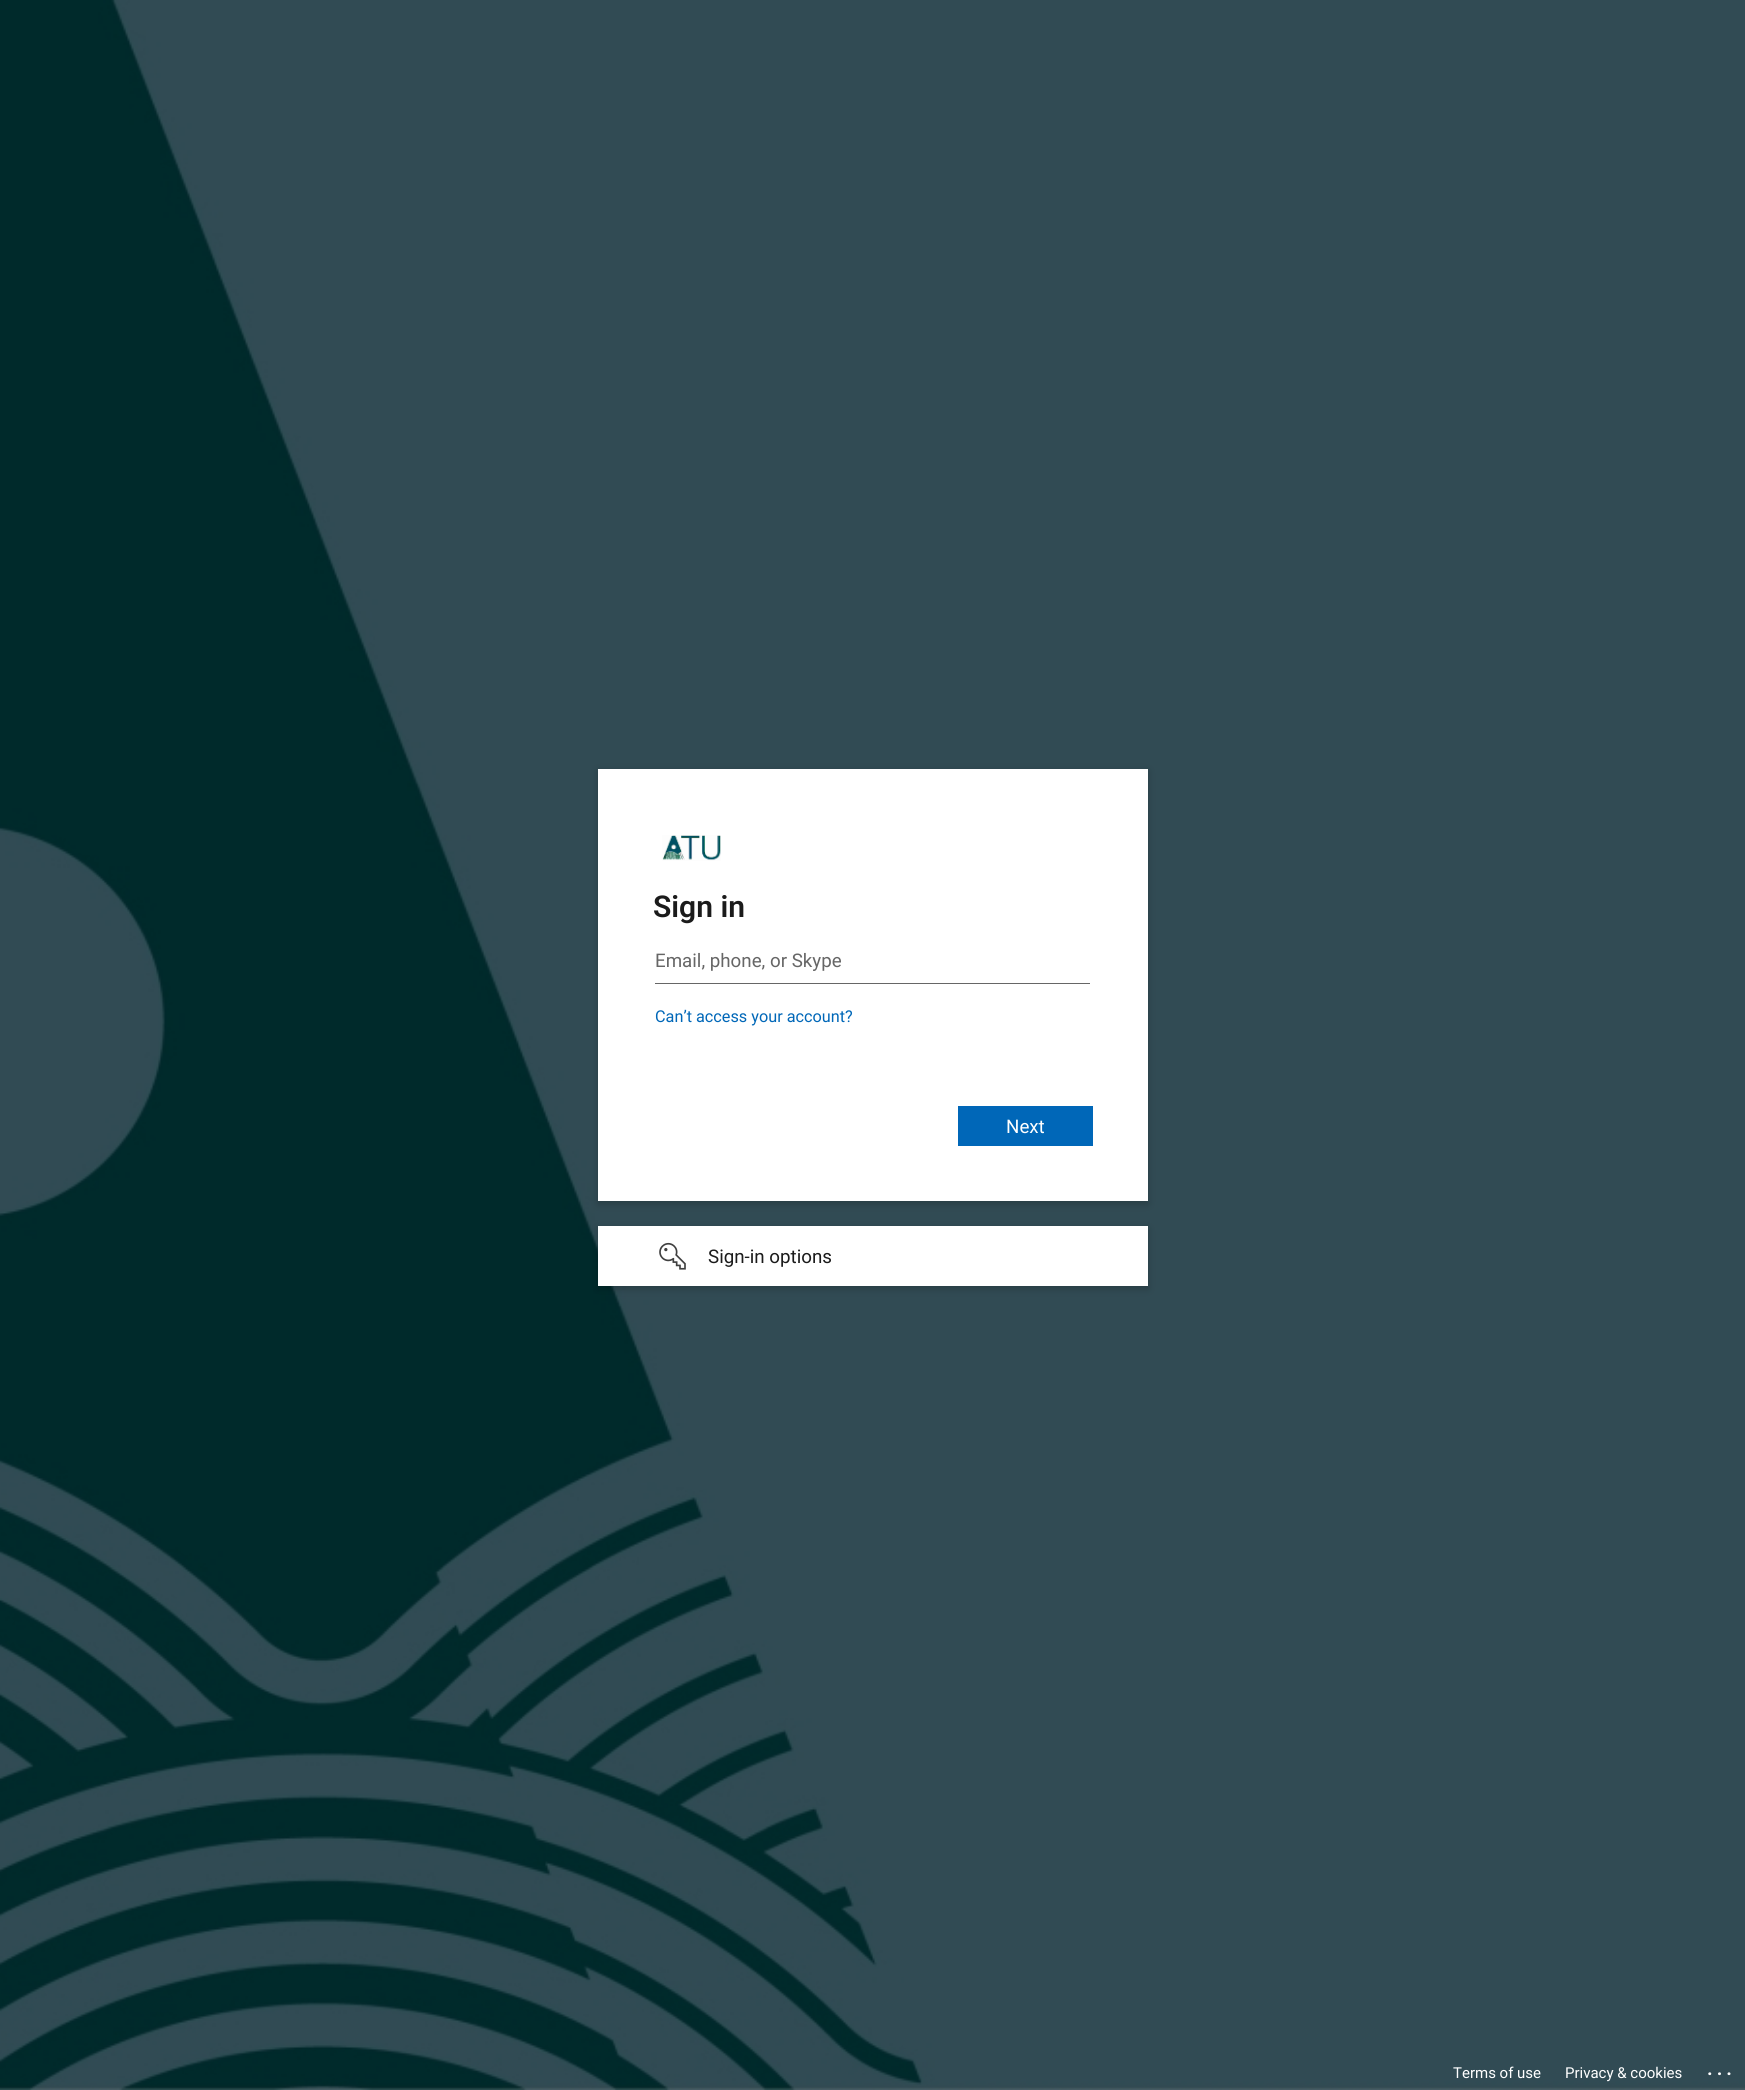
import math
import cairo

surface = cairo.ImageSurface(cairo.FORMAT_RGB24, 1745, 2090)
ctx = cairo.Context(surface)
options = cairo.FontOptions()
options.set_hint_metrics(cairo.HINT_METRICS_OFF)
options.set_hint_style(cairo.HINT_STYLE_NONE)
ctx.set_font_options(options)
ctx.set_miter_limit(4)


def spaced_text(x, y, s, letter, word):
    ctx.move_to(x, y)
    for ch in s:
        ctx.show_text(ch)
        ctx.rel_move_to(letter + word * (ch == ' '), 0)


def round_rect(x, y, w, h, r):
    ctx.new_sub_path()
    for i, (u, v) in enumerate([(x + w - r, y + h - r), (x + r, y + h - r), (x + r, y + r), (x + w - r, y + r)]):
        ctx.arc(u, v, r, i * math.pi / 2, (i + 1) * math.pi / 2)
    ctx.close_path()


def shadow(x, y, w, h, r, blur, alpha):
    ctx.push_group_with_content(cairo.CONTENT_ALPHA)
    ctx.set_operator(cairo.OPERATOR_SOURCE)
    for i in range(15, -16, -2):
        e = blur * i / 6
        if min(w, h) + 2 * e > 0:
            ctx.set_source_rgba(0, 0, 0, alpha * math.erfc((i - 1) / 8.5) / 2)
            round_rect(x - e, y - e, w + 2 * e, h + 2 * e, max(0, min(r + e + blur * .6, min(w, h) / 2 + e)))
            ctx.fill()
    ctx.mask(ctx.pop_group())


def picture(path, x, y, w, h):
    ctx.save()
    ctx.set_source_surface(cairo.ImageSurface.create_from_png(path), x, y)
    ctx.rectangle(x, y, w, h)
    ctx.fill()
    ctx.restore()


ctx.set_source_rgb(1, 1, 1)
ctx.paint()
picture("img1.png", 0, 0, 1745, 2090)
ctx.set_source_rgb(0, 0, 0)
shadow(598, 771, 550, 433, 0, 4, 0.2)
ctx.set_source_rgb(1, 1, 1)
ctx.rectangle(598, 769, 550, 432)
ctx.fill()
picture("img2.png", 662, 835, 59, 26)
ctx.select_font_face("Roboto SemiBold")
ctx.set_font_size(30)
ctx.set_source_rgb(0.106, 0.106, 0.106)
ctx.move_to(653, 917)
ctx.show_text("Sign in")
ctx.set_source_rgb(0.4, 0.4, 0.4)
ctx.rectangle(655, 983, 435, 1)
ctx.fill()
ctx.select_font_face("Roboto")
ctx.set_font_size(18.75)
ctx.move_to(655, 967)
ctx.show_text("Email, phone, or Skype")
ctx.set_font_size(16.25)
ctx.set_source_rgb(0, 0.404, 0.722)
ctx.move_to(655, 1022)
ctx.show_text("Can’t access your account?")
ctx.rectangle(958, 1106, 135, 40)
ctx.fill()
ctx.set_font_size(18.75)
ctx.set_source_rgb(1, 1, 1)
ctx.move_to(1006, 1133)
ctx.show_text("Next")
ctx.set_source_rgb(0, 0, 0)
shadow(598, 1229, 550, 60, 0, 4, 0.2)
ctx.set_source_rgb(1, 1, 1)
ctx.rectangle(598, 1226, 550, 60)
ctx.fill()
picture("img3.png", 659, 1242, 27, 28)
ctx.set_source_rgb(0.106, 0.106, 0.106)
ctx.move_to(708, 1263)
ctx.show_text("Sign-in options")
ctx.set_font_size(15)
ctx.set_source_rgb(1, 1, 1)
ctx.move_to(1453, 2078)
ctx.show_text("Terms of use")
ctx.move_to(1565, 2078)
ctx.show_text("Privacy & cookies")
ctx.select_font_face("Roboto SemiBold")
ctx.set_font_size(20)
spaced_text(1707, 2075, "...", 4, 0)
surface.write_to_png("page.png")
